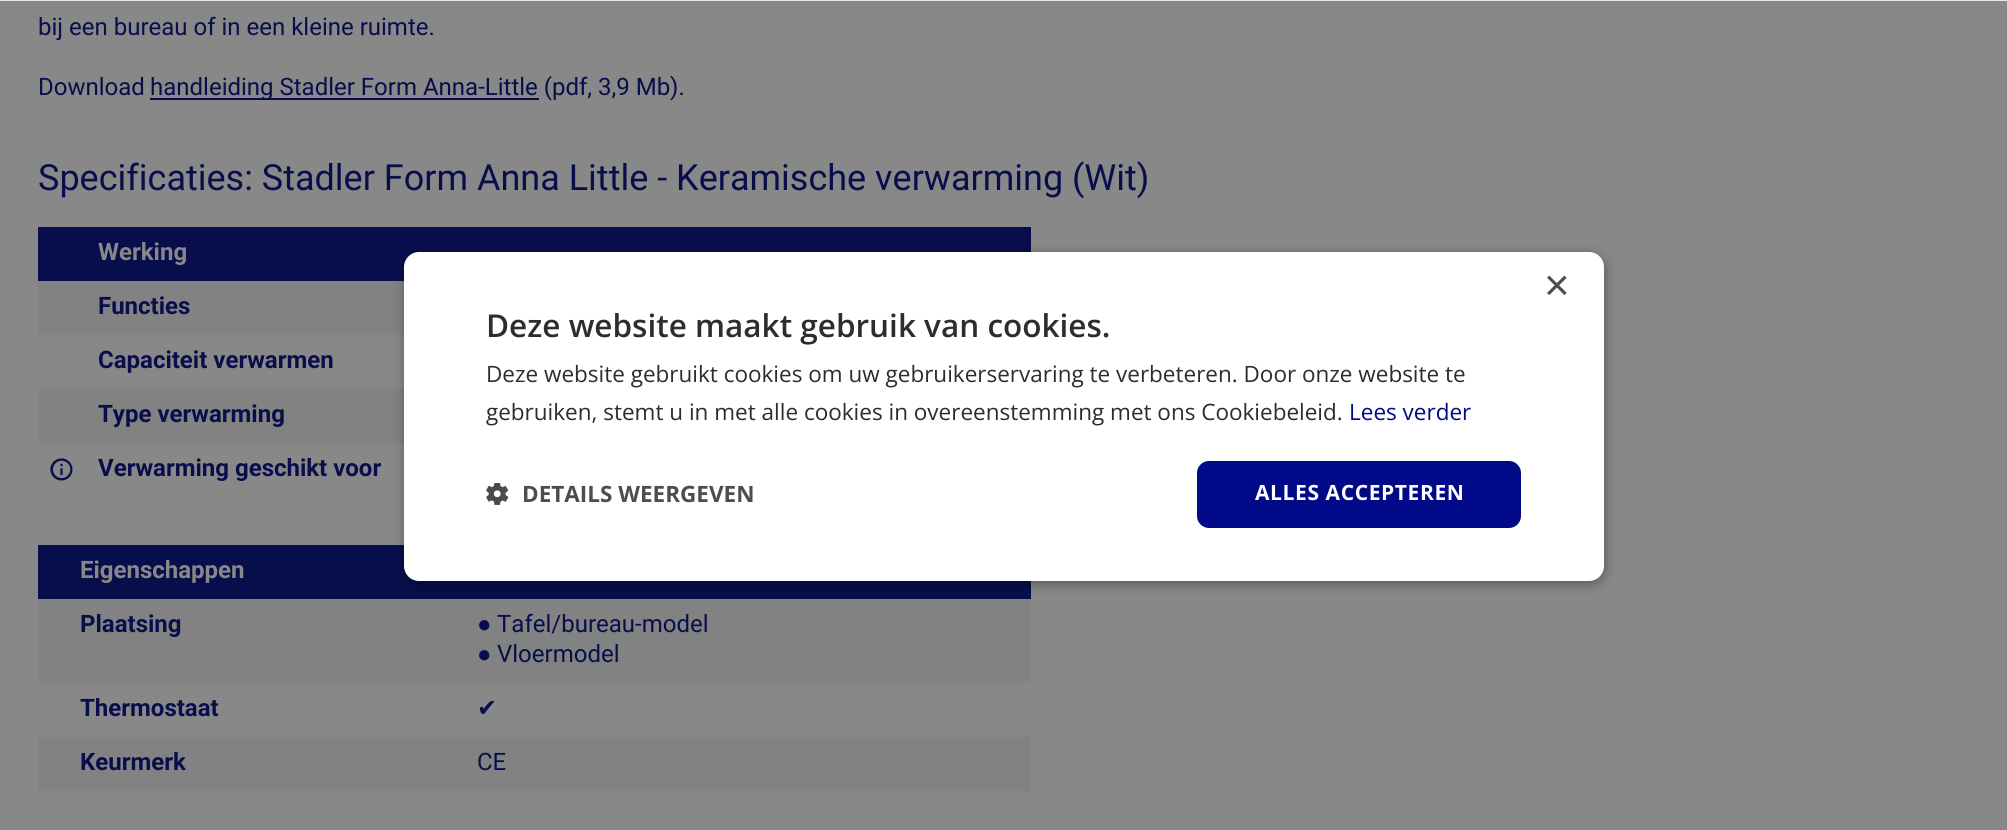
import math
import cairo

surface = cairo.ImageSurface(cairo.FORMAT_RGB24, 2007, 830)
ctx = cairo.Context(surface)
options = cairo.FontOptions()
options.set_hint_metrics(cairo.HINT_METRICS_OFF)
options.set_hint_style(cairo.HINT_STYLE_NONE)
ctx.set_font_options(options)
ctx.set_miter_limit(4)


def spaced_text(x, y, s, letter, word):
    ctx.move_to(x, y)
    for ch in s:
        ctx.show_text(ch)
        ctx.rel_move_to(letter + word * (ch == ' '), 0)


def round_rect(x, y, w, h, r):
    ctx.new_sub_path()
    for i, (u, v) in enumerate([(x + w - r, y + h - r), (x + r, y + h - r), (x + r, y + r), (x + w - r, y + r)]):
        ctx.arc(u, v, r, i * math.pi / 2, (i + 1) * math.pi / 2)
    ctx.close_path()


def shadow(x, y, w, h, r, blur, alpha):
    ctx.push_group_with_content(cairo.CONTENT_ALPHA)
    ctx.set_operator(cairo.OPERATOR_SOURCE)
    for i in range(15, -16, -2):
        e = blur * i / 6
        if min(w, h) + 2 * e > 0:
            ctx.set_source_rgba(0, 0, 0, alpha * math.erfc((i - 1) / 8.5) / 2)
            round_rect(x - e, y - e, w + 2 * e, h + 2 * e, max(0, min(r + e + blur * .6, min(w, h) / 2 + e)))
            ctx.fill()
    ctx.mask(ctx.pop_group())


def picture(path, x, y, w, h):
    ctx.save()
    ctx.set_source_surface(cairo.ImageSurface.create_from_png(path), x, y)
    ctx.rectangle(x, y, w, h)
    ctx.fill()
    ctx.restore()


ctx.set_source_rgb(0.533, 0.533, 0.533)
ctx.paint()
ctx.set_source_rgb(0.898, 0.902, 0.953)
ctx.rectangle(0, 0, 2007, 1)
ctx.fill()
ctx.select_font_face("Roboto")
ctx.set_font_size(24)
ctx.set_source_rgb(0.035, 0.055, 0.298)
ctx.move_to(38, 35)
ctx.show_text("bij een bureau of in een kleine ruimte.")
ctx.move_to(38, 95)
ctx.show_text("Download")
ctx.rectangle(150, 98, 389, 2)
ctx.fill()
ctx.move_to(150, 95)
ctx.show_text("handleiding Stadler Form Anna-Little (pdf, 3,9 Mb).")
ctx.set_font_size(36)
ctx.move_to(38, 190)
ctx.show_text("Specificaties: Stadler Form Anna Little - Keramische verwarming (Wit)")
ctx.rectangle(38, 227, 993, 54)
ctx.fill()
ctx.select_font_face("Roboto", cairo.FONT_SLANT_NORMAL, cairo.FONT_WEIGHT_BOLD)
ctx.set_font_size(24)
ctx.set_source_rgb(0.533, 0.533, 0.533)
ctx.move_to(98, 260)
ctx.show_text("Werking")
ctx.set_source_rgb(0.51, 0.51, 0.51)
ctx.rectangle(38, 281, 366, 54)
ctx.fill()
ctx.set_source_rgb(0.035, 0.055, 0.298)
ctx.move_to(98, 314)
ctx.show_text("Functies")
ctx.move_to(98, 368)
ctx.show_text("Capaciteit verwarmen")
ctx.set_source_rgb(0.51, 0.51, 0.51)
ctx.rectangle(38, 389, 366, 54)
ctx.fill()
ctx.set_source_rgb(0.035, 0.055, 0.298)
ctx.move_to(98, 422)
ctx.show_text("Type verwarming")
picture("img1.png", 50, 458, 23, 23)
ctx.move_to(98, 476)
ctx.show_text("Verwarming geschikt voor")
ctx.rectangle(38, 545, 993, 54)
ctx.fill()
ctx.set_source_rgb(0.533, 0.533, 0.533)
ctx.move_to(80, 578)
ctx.show_text("Eigenschappen")
ctx.set_source_rgb(0.51, 0.51, 0.51)
ctx.rectangle(38, 599, 993, 84)
ctx.fill()
ctx.set_source_rgb(0.035, 0.055, 0.298)
ctx.move_to(80, 632)
ctx.show_text("Plaatsing")
ctx.select_font_face("Liberation Sans")
ctx.move_to(477, 632)
ctx.show_text("●")
ctx.select_font_face("Roboto")
ctx.move_to(497, 632)
ctx.show_text("Tafel/bureau-model")
ctx.select_font_face("Liberation Sans")
ctx.move_to(477, 662)
ctx.show_text("●")
ctx.select_font_face("Roboto")
ctx.move_to(497, 662)
ctx.show_text("Vloermodel")
ctx.select_font_face("Roboto", cairo.FONT_SLANT_NORMAL, cairo.FONT_WEIGHT_BOLD)
ctx.move_to(80, 716)
ctx.show_text("Thermostaat")
ctx.select_font_face("DejaVu Sans")
ctx.move_to(477, 716)
ctx.show_text("✔")
ctx.set_source_rgb(0.51, 0.51, 0.51)
ctx.rectangle(38, 737, 993, 54)
ctx.fill()
ctx.select_font_face("Roboto", cairo.FONT_SLANT_NORMAL, cairo.FONT_WEIGHT_BOLD)
ctx.set_source_rgb(0.035, 0.055, 0.298)
ctx.move_to(80, 770)
ctx.show_text("Keurmerk")
ctx.select_font_face("Roboto")
ctx.move_to(477, 770)
ctx.show_text("CE")
ctx.set_source_rgb(0, 0, 0)
shadow(405, 255, 1200, 329, 15, 6, 0.35)
ctx.set_source_rgb(1, 1, 1)
round_rect(404, 252, 1200, 329, 15)
ctx.fill()
ctx.select_font_face("Liberation Sans")
ctx.set_font_size(44)
ctx.set_source_rgb(0.302, 0.302, 0.302)
ctx.move_to(1544, 300)
ctx.show_text("×")
ctx.select_font_face("Open Sans SemiBold")
ctx.set_font_size(31.5)
ctx.set_source_rgb(0.176, 0.176, 0.176)
ctx.move_to(486, 337)
ctx.show_text("Deze website maakt gebruik van cookies.")
ctx.select_font_face("Open Sans")
ctx.set_font_size(22.5)
ctx.move_to(486, 382)
ctx.show_text("Deze website gebruikt cookies om uw gebruikerservaring te verbeteren. Door onze website te")
ctx.move_to(486, 420)
ctx.show_text("gebruiken, stemt u in met alle cookies in overeenstemming met ons Cookiebeleid.")
ctx.set_source_rgb(0, 0.039, 0.529)
ctx.move_to(1349, 420)
ctx.show_text("Lees verder")
picture("img2.png", 486, 483, 23, 22)
ctx.select_font_face("Open Sans", cairo.FONT_SLANT_NORMAL, cairo.FONT_WEIGHT_BOLD)
ctx.set_source_rgb(0.302, 0.302, 0.302)
ctx.move_to(522, 502)
ctx.show_text("DETAILS WEERGEVEN")
ctx.set_source_rgb(0, 0.039, 0.529)
round_rect(1197, 461, 324, 67, 12)
ctx.fill()
ctx.set_font_size(21)
ctx.set_source_rgb(1, 1, 1)
spaced_text(1255, 500, "ALLES ACCEPTEREN", 0.6, 0)
surface.write_to_png("page.png")
